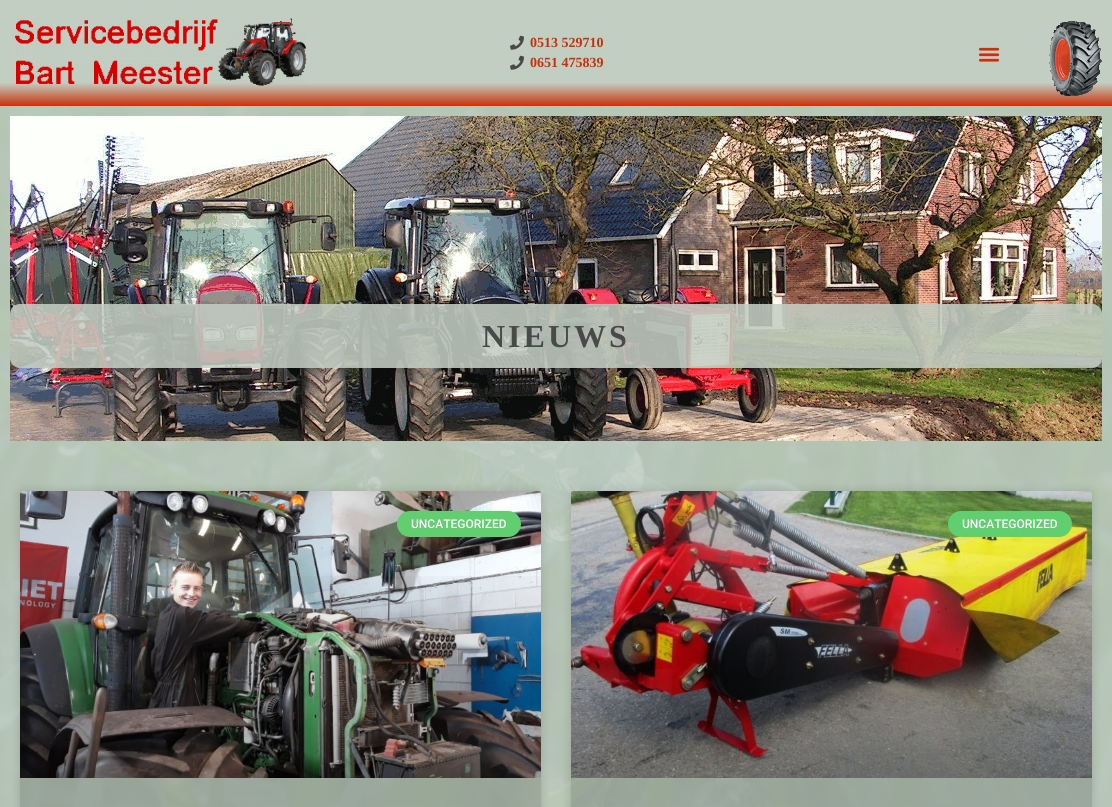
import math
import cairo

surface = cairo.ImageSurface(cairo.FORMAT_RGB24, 1112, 807)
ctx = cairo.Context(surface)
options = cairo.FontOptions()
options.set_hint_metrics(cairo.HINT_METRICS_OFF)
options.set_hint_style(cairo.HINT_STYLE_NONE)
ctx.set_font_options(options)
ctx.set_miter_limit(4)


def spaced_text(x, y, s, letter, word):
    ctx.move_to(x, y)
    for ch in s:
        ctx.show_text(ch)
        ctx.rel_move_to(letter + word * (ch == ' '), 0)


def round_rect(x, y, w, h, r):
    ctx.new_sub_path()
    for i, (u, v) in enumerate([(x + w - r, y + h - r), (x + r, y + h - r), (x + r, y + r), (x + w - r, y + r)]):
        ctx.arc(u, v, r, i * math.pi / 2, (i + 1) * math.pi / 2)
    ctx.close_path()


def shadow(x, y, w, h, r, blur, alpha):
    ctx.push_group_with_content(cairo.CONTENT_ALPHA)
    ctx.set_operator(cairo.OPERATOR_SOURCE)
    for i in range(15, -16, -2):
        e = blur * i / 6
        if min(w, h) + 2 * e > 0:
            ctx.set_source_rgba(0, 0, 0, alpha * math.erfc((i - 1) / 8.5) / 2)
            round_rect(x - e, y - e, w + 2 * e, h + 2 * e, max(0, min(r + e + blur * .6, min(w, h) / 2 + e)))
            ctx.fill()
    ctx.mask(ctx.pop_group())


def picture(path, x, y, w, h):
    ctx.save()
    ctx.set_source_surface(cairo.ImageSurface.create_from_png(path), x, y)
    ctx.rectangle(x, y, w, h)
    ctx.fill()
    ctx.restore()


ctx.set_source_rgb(0.761, 0.808, 0.761)
ctx.paint()
gradient = cairo.LinearGradient(556, 0, 556, 106)
gradient.add_color_stop_rgba(0.78, 0.761, 0.808, 0.761, 1)
gradient.add_color_stop_rgba(1, 0.8, 0.188, 0.039, 1)
ctx.set_source(gradient)
ctx.rectangle(0, 83, 1112, 23)
ctx.fill()
picture("img1.png", 15, 18, 292, 68)
picture("img2.png", 510, 35, 14, 15)
ctx.select_font_face("Liberation Serif", cairo.FONT_SLANT_NORMAL, cairo.FONT_WEIGHT_BOLD)
ctx.set_font_size(14)
ctx.set_source_rgb(0.8, 0.188, 0.039)
ctx.move_to(530, 47)
ctx.show_text("0513 529710")
picture("img2.png", 510, 55, 14, 15)
ctx.move_to(530, 67)
ctx.show_text("0651 475839")
picture("img3.png", 978, 47, 22, 15)
picture("img4.png", 1049, 21, 53, 75)
picture("img5.png", 0, 106, 1112, 701)
picture("img6.png", 10, 116, 1092, 325)
ctx.set_source_rgba(0.761, 0.808, 0.761, 0.87)
round_rect(10, 304, 1092, 64, 10)
ctx.fill()
ctx.set_font_size(32)
ctx.set_source_rgb(0.286, 0.286, 0.286)
spaced_text(482, 347, "NIEUWS", 3, 0)
ctx.save()
ctx.set_fill_rule(cairo.FILL_RULE_EVEN_ODD)
ctx.new_path()
ctx.move_to(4, 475)
ctx.line_to(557, 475)
ctx.line_to(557, 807)
ctx.line_to(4, 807)
ctx.close_path()
ctx.move_to(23, 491)
ctx.line_to(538, 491)
ctx.curve_to(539.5, 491, 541, 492.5, 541, 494)
ctx.line_to(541, 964)
ctx.curve_to(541, 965.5, 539.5, 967, 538, 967)
ctx.line_to(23, 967)
ctx.curve_to(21.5, 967, 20, 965.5, 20, 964)
ctx.line_to(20, 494)
ctx.curve_to(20, 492.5, 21.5, 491, 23, 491)
ctx.close_path()
ctx.clip()
ctx.set_source_rgb(0, 0, 0)
shadow(20, 491, 521, 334, 3, 5, 0.15)
ctx.restore()
ctx.set_source_rgba(0, 0, 0, 0.15)
round_rect(20, 491, 521, 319, 3)
ctx.fill()
picture("img7.png", 20, 491, 521, 287)
gradient = cairo.LinearGradient(281, 778, 281, 491)
gradient.add_color_stop_rgba(0, 0, 0, 0, 0.35)
gradient.add_color_stop_rgba(0.75, 0, 0, 0, 0)
ctx.set_source(gradient)
ctx.rectangle(20, 576, 521, 202)
ctx.fill()
ctx.set_source_rgb(0.38, 0.808, 0.439)
round_rect(397, 511, 124, 26, 13)
ctx.fill()
ctx.select_font_face("Roboto Medium")
ctx.set_font_size(12)
ctx.set_source_rgb(1, 1, 1)
ctx.move_to(411, 528)
ctx.show_text("UNCATEGORIZED")
ctx.save()
ctx.set_fill_rule(cairo.FILL_RULE_EVEN_ODD)
ctx.new_path()
ctx.move_to(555, 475)
ctx.line_to(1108, 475)
ctx.line_to(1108, 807)
ctx.line_to(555, 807)
ctx.close_path()
ctx.move_to(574, 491)
ctx.line_to(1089, 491)
ctx.curve_to(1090.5, 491, 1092, 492.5, 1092, 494)
ctx.line_to(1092, 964)
ctx.curve_to(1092, 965.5, 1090.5, 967, 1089, 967)
ctx.line_to(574, 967)
ctx.curve_to(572.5, 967, 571, 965.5, 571, 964)
ctx.line_to(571, 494)
ctx.curve_to(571, 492.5, 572.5, 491, 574, 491)
ctx.close_path()
ctx.clip()
ctx.set_source_rgb(0, 0, 0)
shadow(571, 491, 521, 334, 3, 5, 0.15)
ctx.restore()
ctx.set_source_rgba(0, 0, 0, 0.15)
round_rect(571, 491, 521, 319, 3)
ctx.fill()
picture("img8.png", 571, 491, 521, 287)
gradient = cairo.LinearGradient(832, 778, 832, 491)
gradient.add_color_stop_rgba(0, 0, 0, 0, 0.35)
gradient.add_color_stop_rgba(0.75, 0, 0, 0, 0)
ctx.set_source(gradient)
ctx.rectangle(571, 576, 521, 202)
ctx.fill()
ctx.set_source_rgb(0.38, 0.808, 0.439)
round_rect(948, 511, 124, 26, 13)
ctx.fill()
ctx.set_source_rgb(1, 1, 1)
ctx.move_to(962, 528)
ctx.show_text("UNCATEGORIZED")
surface.write_to_png("page.png")
